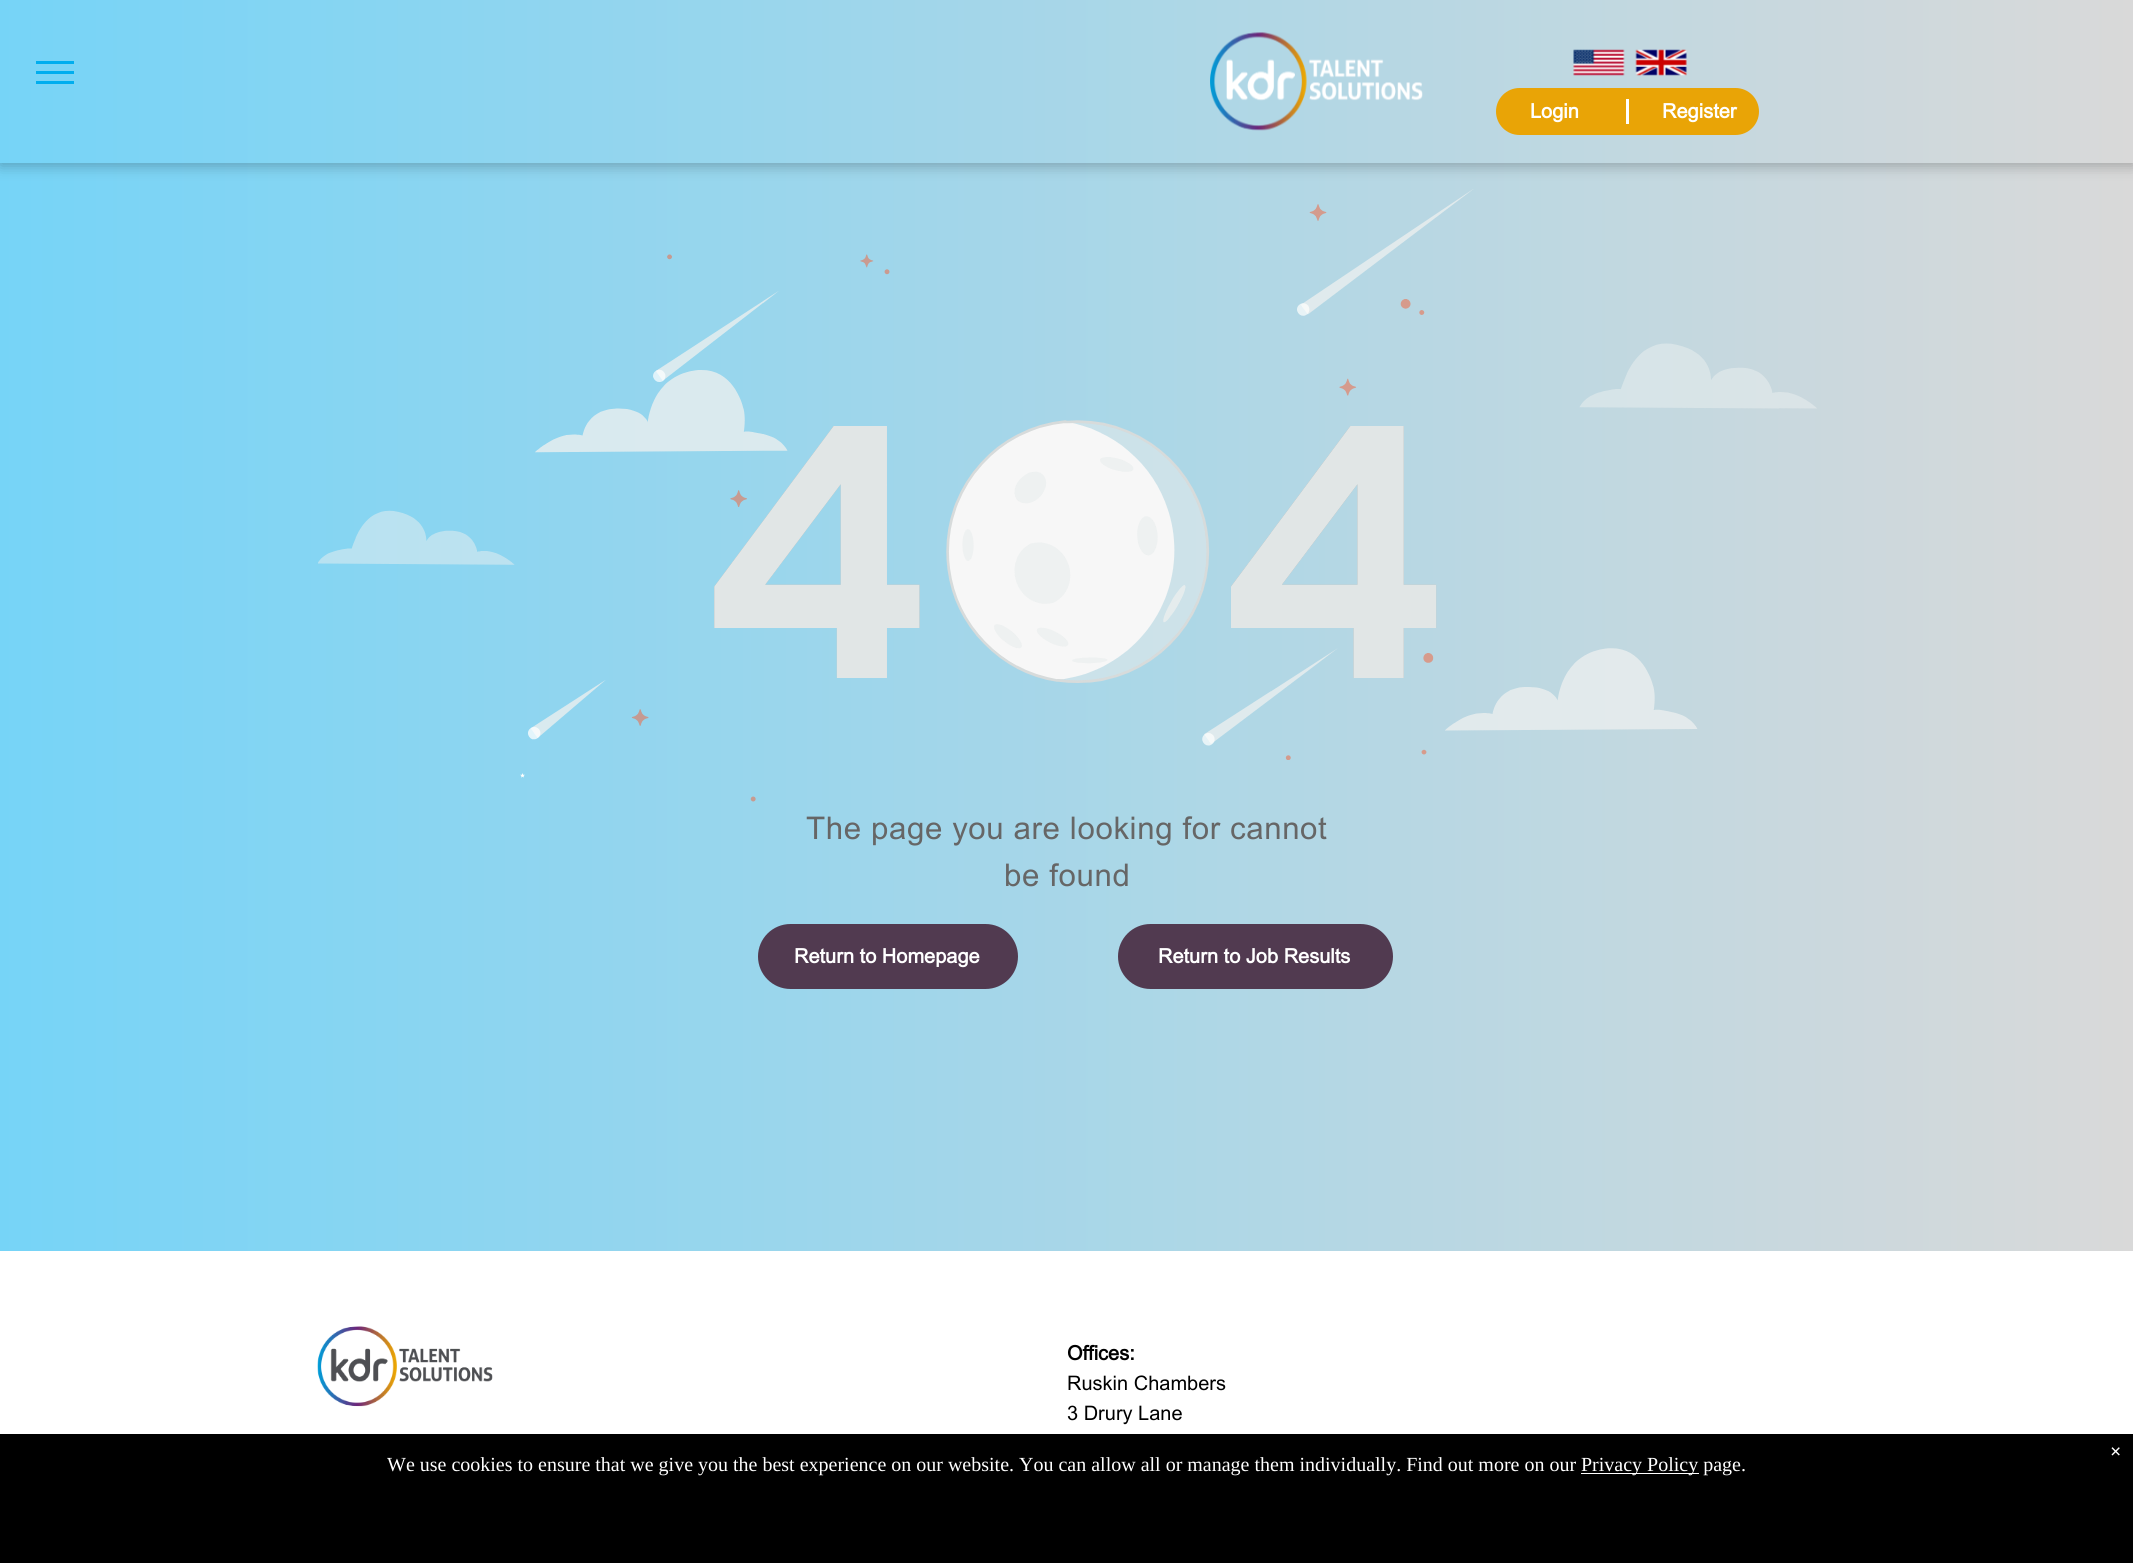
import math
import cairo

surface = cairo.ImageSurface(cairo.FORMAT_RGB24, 2133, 1563)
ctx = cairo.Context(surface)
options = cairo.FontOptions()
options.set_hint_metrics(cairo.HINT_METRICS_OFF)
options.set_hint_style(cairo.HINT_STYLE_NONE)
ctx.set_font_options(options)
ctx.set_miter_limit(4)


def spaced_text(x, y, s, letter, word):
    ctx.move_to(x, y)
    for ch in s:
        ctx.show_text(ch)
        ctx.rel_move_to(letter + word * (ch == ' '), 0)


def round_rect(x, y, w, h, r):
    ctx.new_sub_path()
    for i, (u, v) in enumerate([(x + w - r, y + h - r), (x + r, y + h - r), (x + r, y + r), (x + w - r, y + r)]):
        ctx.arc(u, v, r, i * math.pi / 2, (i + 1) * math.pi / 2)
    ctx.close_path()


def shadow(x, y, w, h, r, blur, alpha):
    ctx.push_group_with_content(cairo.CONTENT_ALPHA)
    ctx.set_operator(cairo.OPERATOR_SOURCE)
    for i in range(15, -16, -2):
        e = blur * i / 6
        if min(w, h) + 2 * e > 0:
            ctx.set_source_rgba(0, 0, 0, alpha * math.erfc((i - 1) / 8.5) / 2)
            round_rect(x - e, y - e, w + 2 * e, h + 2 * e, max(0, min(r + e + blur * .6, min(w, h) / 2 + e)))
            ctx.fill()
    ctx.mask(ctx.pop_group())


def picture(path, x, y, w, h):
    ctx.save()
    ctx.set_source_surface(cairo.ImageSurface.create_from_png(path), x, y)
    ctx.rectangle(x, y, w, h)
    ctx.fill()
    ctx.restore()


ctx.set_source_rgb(1, 1, 1)
ctx.paint()
gradient = cairo.LinearGradient(0, 626, 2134, 626)
gradient.add_color_stop_rgba(0, 0.463, 0.831, 0.969, 1)
gradient.add_color_stop_rgba(1, 0.851, 0.851, 0.851, 1)
ctx.set_source(gradient)
ctx.rectangle(0, 0, 2133, 1251)
ctx.fill()
ctx.save()
ctx.set_fill_rule(cairo.FILL_RULE_EVEN_ODD)
ctx.new_path()
ctx.move_to(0, 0)
ctx.line_to(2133, 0)
ctx.line_to(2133, 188)
ctx.line_to(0, 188)
ctx.close_path()
ctx.move_to(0, 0)
ctx.line_to(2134, 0)
ctx.line_to(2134, 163)
ctx.line_to(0, 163)
ctx.close_path()
ctx.clip()
ctx.set_source_rgb(0, 0, 0)
shadow(0, 4, 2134, 162, 0, 7, 0.25)
ctx.restore()
ctx.set_source_rgb(0, 0.682, 0.937)
ctx.rectangle(36, 61, 38, 3)
ctx.fill()
ctx.rectangle(36, 71, 38, 3)
ctx.fill()
ctx.rectangle(36, 81, 38, 3)
ctx.fill()
picture("img1.png", 1210, 32, 213, 99)
picture("img2.png", 1573, 49, 52, 27)
picture("img3.png", 1635, 49, 52, 27)
ctx.set_source_rgb(0.914, 0.643, 0.024)
round_rect(1496, 88, 263, 47, 23.5)
ctx.fill()
ctx.select_font_face("Arial", cairo.FONT_SLANT_NORMAL, cairo.FONT_WEIGHT_BOLD)
ctx.set_font_size(20)
ctx.set_source_rgb(1, 1, 1)
ctx.move_to(1530, 118)
ctx.show_text("Login")
ctx.rectangle(1626, 99, 3, 25)
ctx.fill()
ctx.move_to(1662, 118)
ctx.show_text("Register")
picture("img4.png", 318, 189, 1499, 613)
ctx.select_font_face("Arial")
ctx.set_font_size(31.25)
ctx.set_source_rgb(0.4, 0.4, 0.4)
spaced_text(806, 839, "The page you are looking for cannot", 0.6, 0)
spaced_text(1004, 886, "be found", 0.6, 0)
ctx.set_source_rgb(0.318, 0.227, 0.314)
round_rect(758, 924, 260, 65, 32.5)
ctx.fill()
ctx.select_font_face("Arial", cairo.FONT_SLANT_NORMAL, cairo.FONT_WEIGHT_BOLD)
ctx.set_font_size(20)
ctx.set_source_rgb(1, 1, 1)
ctx.move_to(794, 963)
ctx.show_text("Return to Homepage")
ctx.set_source_rgb(0.318, 0.227, 0.314)
round_rect(1118, 924, 275, 65, 32.5)
ctx.fill()
ctx.set_source_rgb(1, 1, 1)
ctx.move_to(1158, 963)
ctx.show_text("Return to Job Results")
picture("img5.png", 317, 1326, 176, 81)
ctx.set_source_rgb(0, 0, 0)
ctx.move_to(1067, 1360)
ctx.show_text("Offices:")
ctx.select_font_face("Arial")
ctx.move_to(1067, 1390)
ctx.show_text("Ruskin Chambers")
ctx.move_to(1067, 1420)
ctx.show_text("3 Drury Lane")
ctx.rectangle(0, 1434, 2133, 129)
ctx.fill()
ctx.select_font_face("Liberation Serif", cairo.FONT_SLANT_NORMAL, cairo.FONT_WEIGHT_BOLD)
ctx.set_source_rgb(1, 1, 1)
ctx.move_to(2110, 1458)
ctx.show_text("×")
ctx.select_font_face("Liberation Serif")
ctx.move_to(387, 1471)
ctx.show_text("We use cookies to ensure that we give you the best experience on our website. You can allow all or manage them individually. Find out more on our")
ctx.rectangle(1581, 1473, 118, 1)
ctx.fill()
ctx.move_to(1581, 1471)
ctx.show_text("Privacy Policy page.")
surface.write_to_png("page.png")
